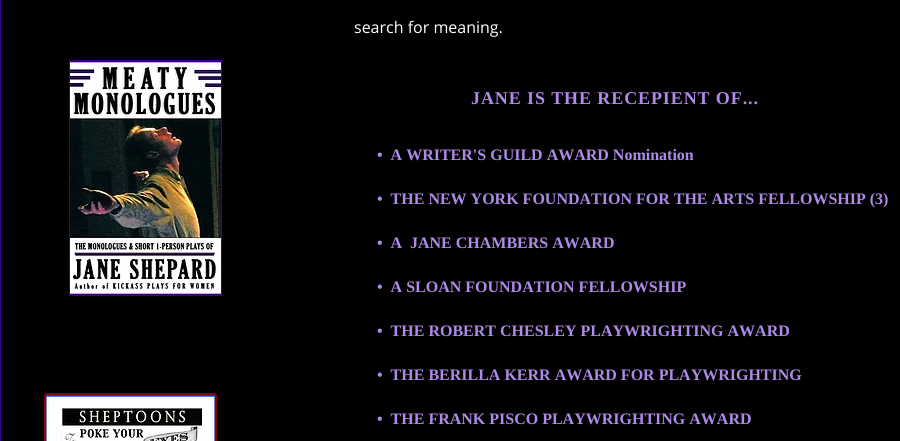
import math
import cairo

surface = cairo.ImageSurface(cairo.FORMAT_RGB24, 900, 441)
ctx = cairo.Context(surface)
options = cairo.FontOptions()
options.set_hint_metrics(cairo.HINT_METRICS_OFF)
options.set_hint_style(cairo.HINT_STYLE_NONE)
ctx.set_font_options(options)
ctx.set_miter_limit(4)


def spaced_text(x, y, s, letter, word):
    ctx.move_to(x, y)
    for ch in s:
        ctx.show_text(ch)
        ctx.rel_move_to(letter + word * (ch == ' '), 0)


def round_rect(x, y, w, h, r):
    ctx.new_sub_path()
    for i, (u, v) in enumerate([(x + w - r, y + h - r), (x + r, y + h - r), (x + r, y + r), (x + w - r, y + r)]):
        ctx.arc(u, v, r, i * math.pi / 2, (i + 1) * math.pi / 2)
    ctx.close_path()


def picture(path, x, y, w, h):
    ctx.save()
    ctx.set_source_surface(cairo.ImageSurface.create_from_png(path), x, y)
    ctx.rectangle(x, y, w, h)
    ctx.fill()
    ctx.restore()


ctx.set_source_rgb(0.216, 0.016, 0.561)
ctx.paint()
ctx.set_source_rgb(0, 0, 0)
ctx.rectangle(1, 0, 899, 441)
ctx.fill()
ctx.select_font_face("Open Sans")
ctx.set_font_size(16)
ctx.set_source_rgb(1, 1, 1)
ctx.move_to(354, 33)
ctx.show_text("search for meaning.")
ctx.set_source_rgb(0.216, 0.016, 0.561)
ctx.rectangle(69, 60, 153, 236)
ctx.fill()
picture("img1.png", 70, 61, 151, 234)
ctx.select_font_face("Liberation Serif", cairo.FONT_SLANT_NORMAL, cairo.FONT_WEIGHT_BOLD)
ctx.set_font_size(18)
ctx.set_source_rgb(0.678, 0.545, 0.91)
spaced_text(471, 104, "JANE IS THE RECEPIENT OF...", 0.9, 0)
ctx.set_source_rgb(0.545, 0, 0)
round_rect(45, 394, 171, 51, 2)
ctx.fill_preserve()
ctx.stroke()
picture("img2.png", 46, 395, 169, 46)
ctx.set_font_size(16)
ctx.set_source_rgb(0.678, 0.545, 0.91)
ctx.move_to(377, 160)
ctx.show_text("•  A WRITER'S GUILD AWARD Nomination")
ctx.move_to(377, 204)
ctx.show_text("•  THE NEW YORK FOUNDATION FOR THE ARTS FELLOWSHIP (3)")
ctx.move_to(377, 248)
ctx.show_text("•  A")
ctx.move_to(410, 248)
ctx.show_text("JANE CHAMBERS AWARD")
ctx.move_to(377, 292)
ctx.show_text("•  A SLOAN FOUNDATION FELLOWSHIP")
ctx.move_to(377, 336)
ctx.show_text("•  THE ROBERT CHESLEY PLAYWRIGHTING AWARD")
ctx.move_to(377, 380)
ctx.show_text("•  THE BERILLA KERR AWARD FOR PLAYWRIGHTING")
ctx.move_to(377, 424)
ctx.show_text("•  THE FRANK PISCO PLAYWRIGHTING AWARD")
surface.write_to_png("page.png")
